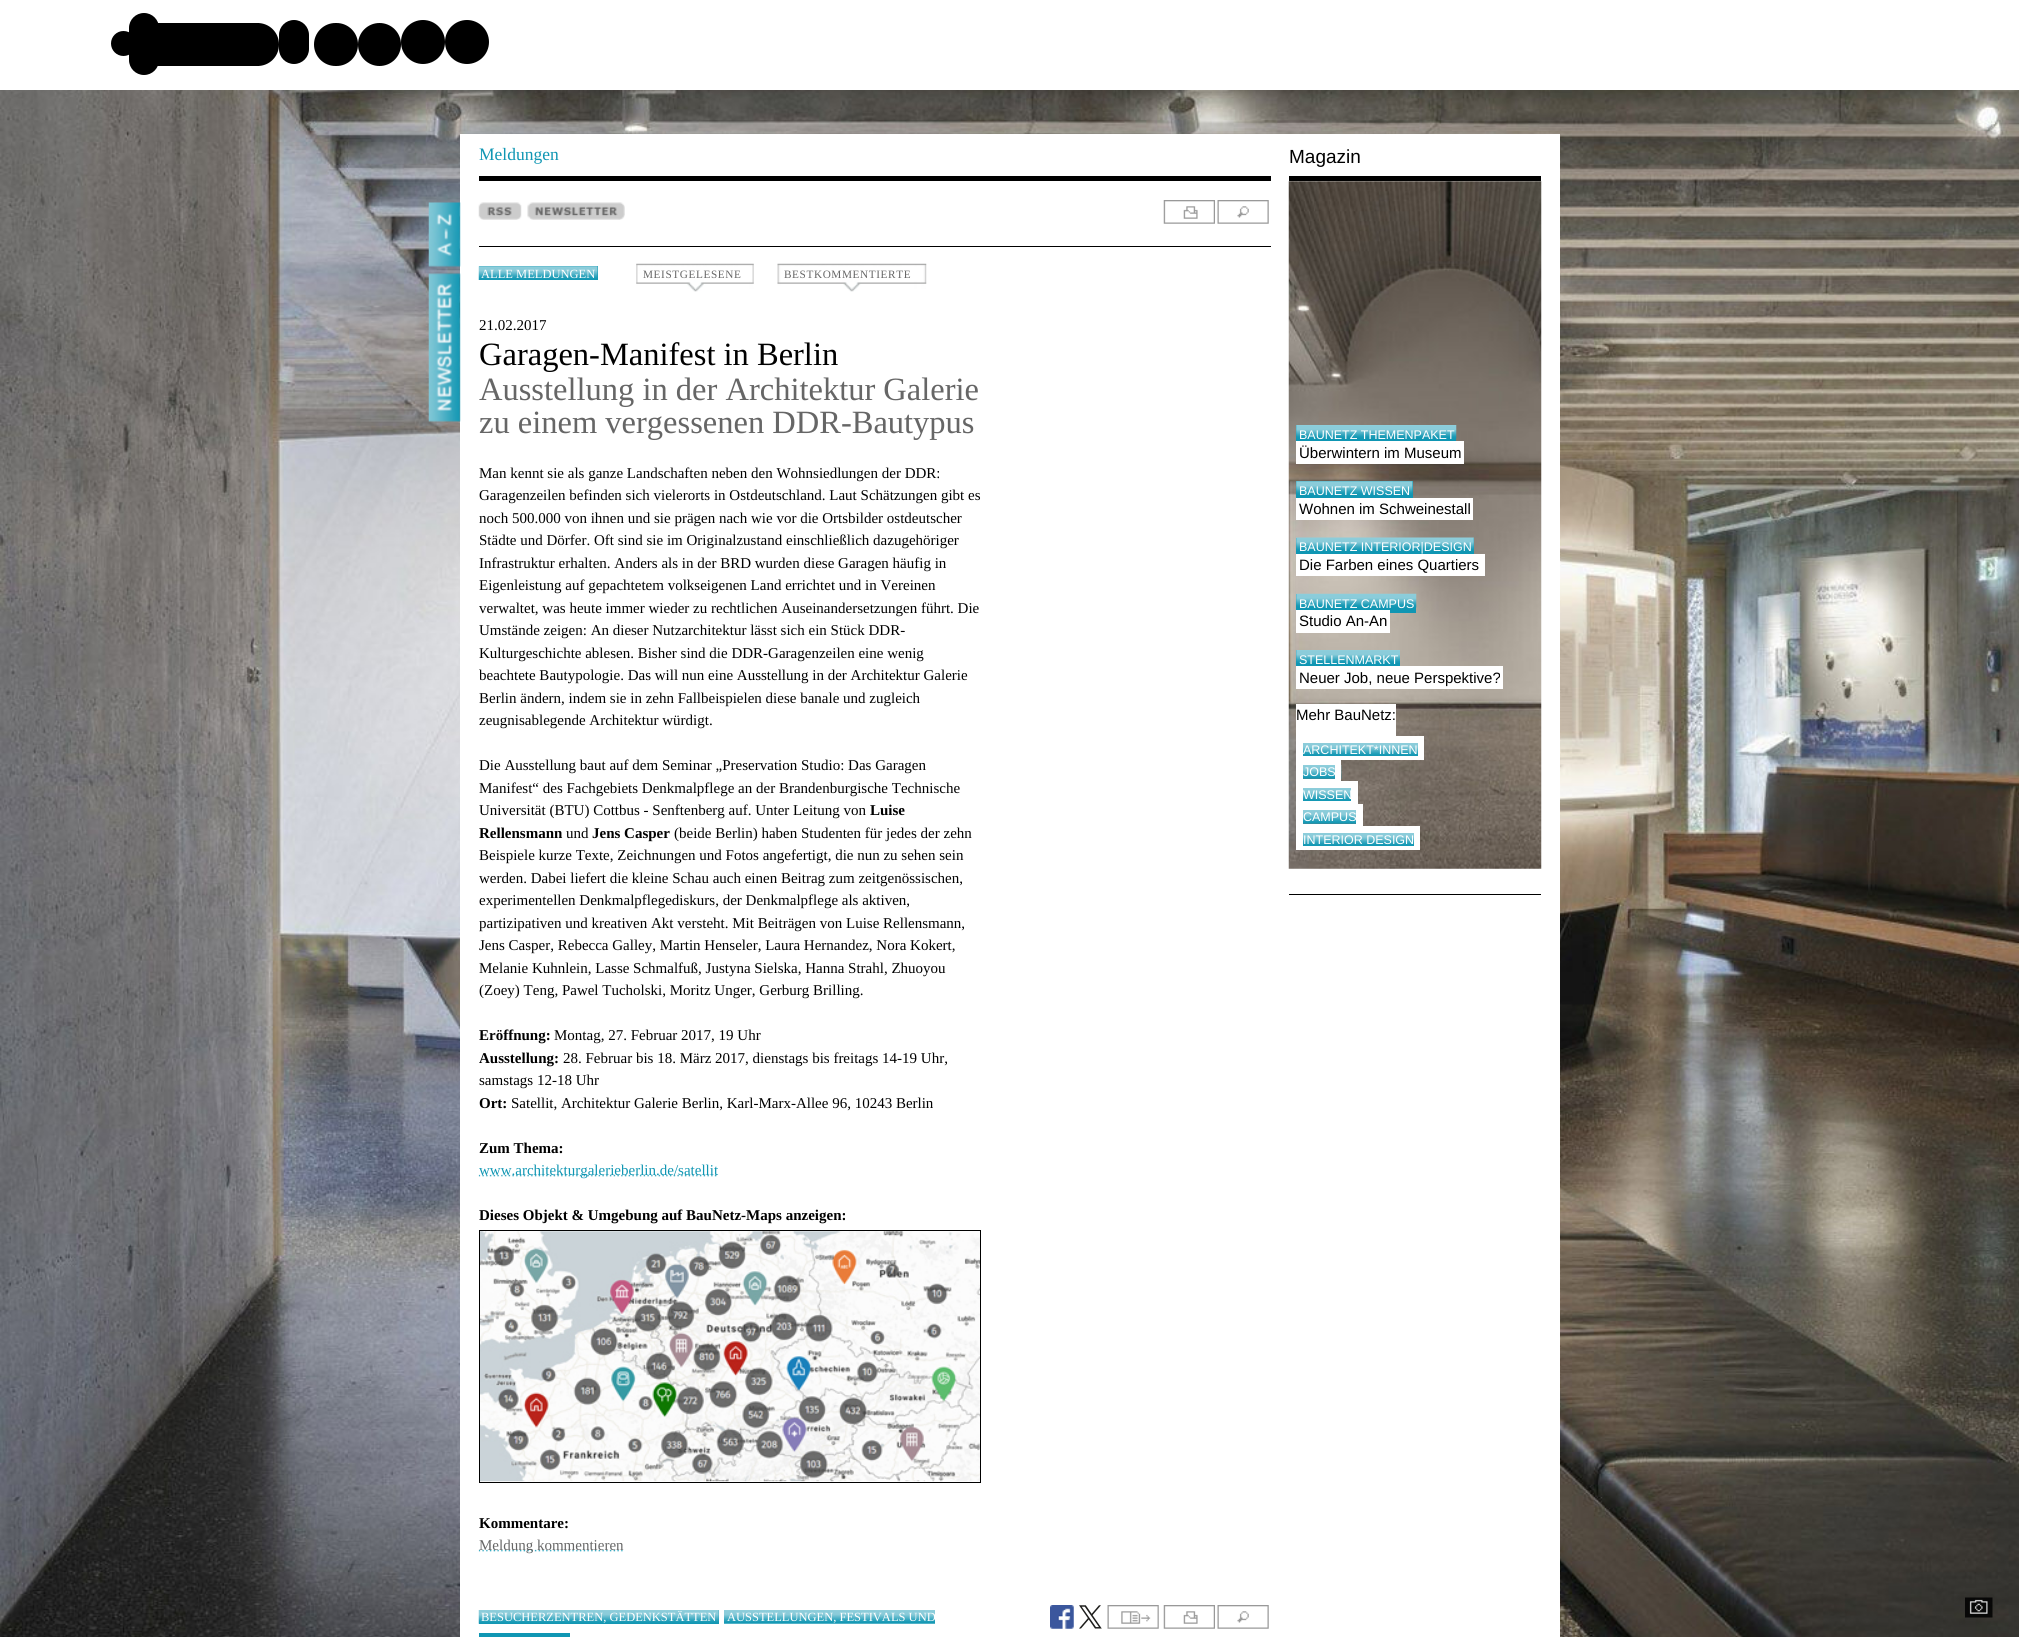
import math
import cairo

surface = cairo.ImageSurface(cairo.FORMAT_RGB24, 2019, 1637)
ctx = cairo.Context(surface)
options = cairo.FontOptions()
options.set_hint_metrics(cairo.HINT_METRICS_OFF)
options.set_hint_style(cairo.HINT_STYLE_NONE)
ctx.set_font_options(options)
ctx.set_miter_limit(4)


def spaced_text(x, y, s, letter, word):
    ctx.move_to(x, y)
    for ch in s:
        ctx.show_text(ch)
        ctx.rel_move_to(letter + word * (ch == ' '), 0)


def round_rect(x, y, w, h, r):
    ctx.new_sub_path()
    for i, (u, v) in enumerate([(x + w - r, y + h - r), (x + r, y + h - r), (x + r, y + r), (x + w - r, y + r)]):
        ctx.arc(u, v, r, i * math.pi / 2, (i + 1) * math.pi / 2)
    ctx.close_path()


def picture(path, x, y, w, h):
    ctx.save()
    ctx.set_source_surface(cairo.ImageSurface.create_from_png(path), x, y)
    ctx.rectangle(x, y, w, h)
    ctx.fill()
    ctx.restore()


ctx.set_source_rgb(1, 1, 1)
ctx.paint()
picture("img1.png", 0, 90, 2019, 1547)
ctx.set_source_rgb(0, 0, 0)
ctx.arc(123.5, 43.5, 12.5, 0, 2 * math.pi)
ctx.fill()
round_rect(129, 13, 30, 62, 15)
ctx.fill()
ctx.rectangle(157, 23, 102, 43)
ctx.fill()
ctx.new_path()
ctx.move_to(249, 23)
ctx.line_to(257.5, 23)
ctx.curve_to(269.5, 23, 279, 32.5, 279, 44.5)
ctx.curve_to(279, 56.5, 269.5, 66, 257.5, 66)
ctx.line_to(249, 66)
ctx.close_path()
ctx.fill()
round_rect(279, 20, 30, 44, 15)
ctx.fill()
round_rect(314, 23, 44, 43, 21.5)
ctx.fill()
ctx.arc(379.5, 44.5, 21.5, 0, 2 * math.pi)
ctx.fill()
ctx.arc(423, 42, 22, 0, 2 * math.pi)
ctx.fill()
ctx.arc(467, 42, 22, 0, 2 * math.pi)
ctx.fill()
ctx.set_source_rgb(1, 1, 1)
ctx.rectangle(460, 134, 1100, 1503)
ctx.fill()
ctx.select_font_face("Liberation Serif")
ctx.set_font_size(17.5)
ctx.set_source_rgb(0.059, 0.588, 0.702)
ctx.move_to(479, 160)
ctx.show_text("Meldungen")
ctx.select_font_face("Liberation Sans")
ctx.set_font_size(19)
ctx.set_source_rgb(0, 0, 0)
ctx.move_to(1289, 163)
ctx.show_text("Magazin")
ctx.rectangle(479, 176, 792, 5)
ctx.fill()
ctx.rectangle(1289, 176, 252, 5)
ctx.fill()
picture("img2.png", 428, 202, 33, 65)
picture("img3.png", 428, 273, 33, 149)
ctx.rectangle(479, 246, 792, 1)
ctx.fill()
picture("img4.png", 478, 202, 44, 18)
picture("img5.png", 527, 202, 98, 18)
picture("img6.png", 1163, 200, 52, 24)
picture("img7.png", 1217, 200, 52, 24)
ctx.set_source_rgb(0.059, 0.588, 0.702)
ctx.rectangle(479, 266, 119, 14)
ctx.fill()
picture("img8.png", 478, 266, 120, 14)
ctx.select_font_face("Liberation Serif")
ctx.set_font_size(12.5)
ctx.set_source_rgb(1, 1, 1)
ctx.move_to(481, 278)
ctx.show_text("ALLE MELDUNGEN")
picture("img9.png", 636, 263, 118, 29)
ctx.set_font_size(11.25)
ctx.set_source_rgb(0.4, 0.4, 0.4)
spaced_text(643, 278, "MEISTGELESENE", 0.6, 0)
picture("img10.png", 777, 263, 150, 29)
spaced_text(784, 278, "BESTKOMMENTIERTE", 0.6, 0)
ctx.set_font_size(15)
ctx.set_source_rgb(0, 0, 0)
ctx.move_to(479, 330)
ctx.show_text("21.02.2017")
ctx.set_font_size(32.5)
ctx.move_to(479, 365)
ctx.show_text("Garagen-Manifest in Berlin")
ctx.set_source_rgb(0.4, 0.4, 0.4)
ctx.move_to(479, 400)
ctx.show_text("Ausstellung in der Architektur Galerie")
ctx.move_to(479, 433)
ctx.show_text("zu einem vergessenen DDR-Bautypus")
ctx.set_font_size(15)
ctx.set_source_rgb(0, 0, 0)
ctx.move_to(479, 478)
ctx.show_text("Man kennt sie als ganze Landschaften neben den Wohnsiedlungen der DDR:")
ctx.move_to(479, 500)
ctx.show_text("Garagenzeilen befinden sich vielerorts in Ostdeutschland. Laut Schätzungen gibt es")
ctx.move_to(479, 523)
ctx.show_text("noch 500.000 von ihnen und sie prägen nach wie vor die Ortsbilder ostdeutscher")
ctx.move_to(479, 545)
ctx.show_text("Städte und Dörfer. Oft sind sie im Originalzustand einschließlich dazugehöriger")
ctx.move_to(479, 568)
ctx.show_text("Infrastruktur erhalten. Anders als in der BRD wurden diese Garagen häufig in")
ctx.move_to(479, 590)
ctx.show_text("Eigenleistung auf gepachtetem volkseigenen Land errichtet und in Vereinen")
ctx.move_to(479, 613)
ctx.show_text("verwaltet, was heute immer wieder zu rechtlichen Auseinandersetzungen führt. Die")
ctx.move_to(479, 635)
ctx.show_text("Umstände zeigen: An dieser Nutzarchitektur lässt sich ein Stück DDR-")
ctx.move_to(479, 658)
ctx.show_text("Kulturgeschichte ablesen. Bisher sind die DDR-Garagenzeilen eine wenig")
ctx.move_to(479, 680)
ctx.show_text("beachtete Bautypologie. Das will nun eine Ausstellung in der Architektur Galerie")
ctx.move_to(479, 703)
ctx.show_text("Berlin ändern, indem sie in zehn Fallbeispielen diese banale und zugleich")
ctx.move_to(479, 725)
ctx.show_text("zeugnisablegende Architektur würdigt.")
ctx.move_to(479, 770)
ctx.show_text("Die Ausstellung baut auf dem Seminar „Preservation Studio: Das Garagen")
ctx.move_to(479, 793)
ctx.show_text("Manifest“ des Fachgebiets Denkmalpflege an der Brandenburgische Technische")
ctx.move_to(479, 815)
ctx.show_text("Universität (BTU) Cottbus - Senftenberg auf. Unter Leitung von")
ctx.select_font_face("Liberation Serif", cairo.FONT_SLANT_NORMAL, cairo.FONT_WEIGHT_BOLD)
ctx.move_to(870, 815)
ctx.show_text("Luise")
ctx.move_to(479, 838)
ctx.show_text("Rellensmann")
ctx.select_font_face("Liberation Serif")
ctx.move_to(566, 838)
ctx.show_text("und")
ctx.select_font_face("Liberation Serif", cairo.FONT_SLANT_NORMAL, cairo.FONT_WEIGHT_BOLD)
ctx.move_to(592, 838)
ctx.show_text("Jens Casper")
ctx.select_font_face("Liberation Serif")
ctx.move_to(674, 838)
ctx.show_text("(beide Berlin) haben Studenten für jedes der zehn")
ctx.move_to(479, 860)
ctx.show_text("Beispiele kurze Texte, Zeichnungen und Fotos angefertigt, die nun zu sehen sein")
ctx.move_to(479, 883)
ctx.show_text("werden. Dabei liefert die kleine Schau auch einen Beitrag zum zeitgenössischen,")
ctx.move_to(479, 905)
ctx.show_text("experimentellen Denkmalpflegediskurs, der Denkmalpflege als aktiven,")
ctx.move_to(479, 928)
ctx.show_text("partizipativen und kreativen Akt versteht. Mit Beiträgen von Luise Rellensmann,")
ctx.move_to(479, 950)
ctx.show_text("Jens Casper, Rebecca Galley, Martin Henseler, Laura Hernandez, Nora Kokert,")
ctx.move_to(479, 973)
ctx.show_text("Melanie Kuhnlein, Lasse Schmalfuß, Justyna Sielska, Hanna Strahl, Zhuoyou")
ctx.move_to(479, 995)
ctx.show_text("(Zoey) Teng, Pawel Tucholski, Moritz Unger, Gerburg Brilling.")
ctx.select_font_face("Liberation Serif", cairo.FONT_SLANT_NORMAL, cairo.FONT_WEIGHT_BOLD)
ctx.move_to(479, 1040)
ctx.show_text("Eröffnung:")
ctx.select_font_face("Liberation Serif")
ctx.move_to(554, 1040)
ctx.show_text("Montag, 27. Februar 2017, 19 Uhr")
ctx.select_font_face("Liberation Serif", cairo.FONT_SLANT_NORMAL, cairo.FONT_WEIGHT_BOLD)
ctx.move_to(479, 1063)
ctx.show_text("Ausstellung:")
ctx.select_font_face("Liberation Serif")
ctx.move_to(563, 1063)
ctx.show_text("28. Februar bis 18. März 2017, dienstags bis freitags 14-19 Uhr,")
ctx.move_to(479, 1085)
ctx.show_text("samstags 12-18 Uhr")
ctx.select_font_face("Liberation Serif", cairo.FONT_SLANT_NORMAL, cairo.FONT_WEIGHT_BOLD)
ctx.move_to(479, 1108)
ctx.show_text("Ort:")
ctx.select_font_face("Liberation Serif")
ctx.move_to(511, 1108)
ctx.show_text("Satellit, Architektur Galerie Berlin, Karl-Marx-Allee 96, 10243 Berlin")
ctx.select_font_face("Liberation Serif", cairo.FONT_SLANT_NORMAL, cairo.FONT_WEIGHT_BOLD)
ctx.move_to(479, 1153)
ctx.show_text("Zum Thema:")
picture("img11.png", 478, 1174, 239, 3)
ctx.select_font_face("Liberation Serif")
ctx.set_source_rgb(0.059, 0.588, 0.702)
ctx.move_to(479, 1175)
ctx.show_text("www.architekturgalerieberlin.de/satellit")
ctx.select_font_face("Liberation Serif", cairo.FONT_SLANT_NORMAL, cairo.FONT_WEIGHT_BOLD)
ctx.set_source_rgb(0, 0, 0)
ctx.move_to(479, 1220)
ctx.show_text("Dieses Objekt & Umgebung auf BauNetz-Maps anzeigen:")
ctx.rectangle(479.5, 1230.5, 501, 252)
ctx.set_line_width(1)
ctx.stroke()
picture("img12.png", 480, 1231, 500, 251)
ctx.move_to(479, 1528)
ctx.show_text("Kommentare:")
picture("img13.png", 478, 1549, 145, 3)
ctx.select_font_face("Liberation Serif")
ctx.set_source_rgb(0.4, 0.4, 0.4)
ctx.move_to(479, 1550)
ctx.show_text("Meldung kommentieren")
ctx.set_source_rgb(0.059, 0.588, 0.702)
ctx.rectangle(479, 1610, 240, 14)
ctx.fill()
picture("img14.png", 478, 1610, 241, 14)
ctx.set_font_size(12.5)
ctx.set_source_rgb(1, 1, 1)
ctx.move_to(481, 1621)
ctx.show_text("BESUCHERZENTREN, GEDENKSTÄTTEN")
picture("img15.png", 724, 1610, 211, 14)
ctx.move_to(727, 1621)
ctx.show_text("AUSSTELLUNGEN, FESTIVALS UND")
ctx.set_source_rgb(0.059, 0.588, 0.702)
ctx.rectangle(479, 1633, 91, 4)
ctx.fill()
picture("img16.png", 1050, 1605, 24, 24)
picture("img17.png", 1079, 1605, 23, 24)
picture("img18.png", 1107, 1605, 52, 24)
picture("img6.png", 1163, 1605, 52, 24)
picture("img7.png", 1217, 1605, 52, 24)
picture("img19.png", 1288, 181, 254, 688)
ctx.rectangle(1296, 425, 160, 16)
ctx.fill()
picture("img20.png", 1296, 425, 161, 14)
ctx.select_font_face("Liberation Sans")
ctx.set_source_rgb(1, 1, 1)
ctx.move_to(1299, 439)
ctx.show_text("BAUNETZ THEMENPAKET")
ctx.rectangle(1296, 441, 168, 23)
ctx.fill()
ctx.set_font_size(15)
ctx.set_source_rgb(0, 0, 0)
ctx.move_to(1299, 458)
ctx.show_text("Überwintern im Museum")
ctx.set_source_rgb(0.059, 0.588, 0.702)
ctx.rectangle(1296, 481, 117, 17)
ctx.fill()
picture("img21.png", 1296, 481, 117, 14)
ctx.set_font_size(12.5)
ctx.set_source_rgb(1, 1, 1)
ctx.move_to(1299, 495)
ctx.show_text("BAUNETZ WISSEN")
ctx.rectangle(1296, 498, 177, 22)
ctx.fill()
ctx.set_font_size(15)
ctx.set_source_rgb(0, 0, 0)
ctx.move_to(1299, 514)
ctx.show_text("Wohnen im Schweinestall")
ctx.set_source_rgb(0.059, 0.588, 0.702)
ctx.rectangle(1296, 538, 178, 16)
ctx.fill()
picture("img22.png", 1296, 537, 178, 14)
ctx.set_font_size(12.5)
ctx.set_source_rgb(1, 1, 1)
ctx.move_to(1299, 551)
ctx.show_text("BAUNETZ INTERIOR|DESIGN")
ctx.rectangle(1296, 554, 189, 22)
ctx.fill()
ctx.set_font_size(15)
ctx.set_source_rgb(0, 0, 0)
ctx.move_to(1299, 570)
ctx.show_text("Die Farben eines Quartiers")
ctx.set_source_rgb(0.059, 0.588, 0.702)
ctx.rectangle(1296, 594, 120, 19)
ctx.fill()
picture("img23.png", 1296, 593, 121, 15)
ctx.set_font_size(12.5)
ctx.set_source_rgb(1, 1, 1)
ctx.move_to(1299, 608)
ctx.show_text("BAUNETZ CAMPUS")
ctx.rectangle(1296, 610, 94, 23)
ctx.fill()
ctx.set_font_size(15)
ctx.set_source_rgb(0, 0, 0)
ctx.move_to(1299, 626)
ctx.show_text("Studio An-An")
ctx.set_source_rgb(0.059, 0.588, 0.702)
ctx.rectangle(1296, 650, 104, 16)
ctx.fill()
picture("img24.png", 1296, 650, 104, 13)
ctx.set_font_size(12.5)
ctx.set_source_rgb(1, 1, 1)
ctx.move_to(1299, 664)
ctx.show_text("STELLENMARKT")
ctx.rectangle(1296, 666, 207, 23)
ctx.fill()
ctx.set_font_size(15)
ctx.set_source_rgb(0, 0, 0)
ctx.move_to(1299, 683)
ctx.show_text("Neuer Job, neue Perspektive?")
ctx.set_source_rgb(1, 1, 1)
ctx.rectangle(1296, 704, 100, 32)
ctx.fill()
ctx.set_source_rgb(0, 0, 0)
ctx.move_to(1296, 720)
ctx.show_text("Mehr BauNetz:")
picture("img25.png", 1303, 743, 115, 13)
ctx.set_source_rgb(1, 1, 1)
ctx.rectangle(1296, 736, 128, 7)
ctx.fill()
ctx.rectangle(1418, 736, 6, 24)
ctx.fill()
ctx.rectangle(1296, 756, 128, 4)
ctx.fill()
ctx.rectangle(1296, 736, 7, 24)
ctx.fill()
ctx.set_font_size(12.5)
ctx.move_to(1303, 754)
ctx.show_text("ARCHITEKT*INNEN")
picture("img26.png", 1303, 765, 39, 14)
ctx.rectangle(1296, 760, 45, 5)
ctx.fill()
ctx.rectangle(1335, 759, 6, 24)
ctx.fill()
ctx.rectangle(1296, 779, 45, 2)
ctx.fill()
ctx.rectangle(1296, 759, 7, 24)
ctx.fill()
ctx.move_to(1303, 776)
ctx.show_text("JOBS")
picture("img27.png", 1303, 788, 48, 13)
ctx.rectangle(1296, 781, 62, 7)
ctx.fill()
ctx.rectangle(1351, 781, 7, 24)
ctx.fill()
ctx.rectangle(1296, 801, 62, 3)
ctx.fill()
ctx.rectangle(1296, 781, 7, 24)
ctx.fill()
ctx.move_to(1303, 799)
ctx.show_text("WISSEN")
picture("img28.png", 1303, 810, 53, 14)
ctx.rectangle(1296, 804, 67, 6)
ctx.fill()
ctx.rectangle(1356, 804, 7, 24)
ctx.fill()
ctx.rectangle(1296, 824, 67, 2)
ctx.fill()
ctx.rectangle(1296, 804, 7, 24)
ctx.fill()
ctx.move_to(1303, 821)
ctx.show_text("CAMPUS")
picture("img29.png", 1303, 833, 111, 13)
ctx.rectangle(1296, 826, 124, 7)
ctx.fill()
ctx.rectangle(1414, 826, 6, 24)
ctx.fill()
ctx.rectangle(1296, 846, 124, 4)
ctx.fill()
ctx.rectangle(1296, 826, 7, 24)
ctx.fill()
ctx.move_to(1303, 844)
ctx.show_text("INTERIOR DESIGN")
ctx.set_source_rgb(0, 0, 0)
ctx.rectangle(1289, 894, 252, 1)
ctx.fill()
picture("img30.png", 1965, 1597, 28, 21)
surface.write_to_png("page.png")
